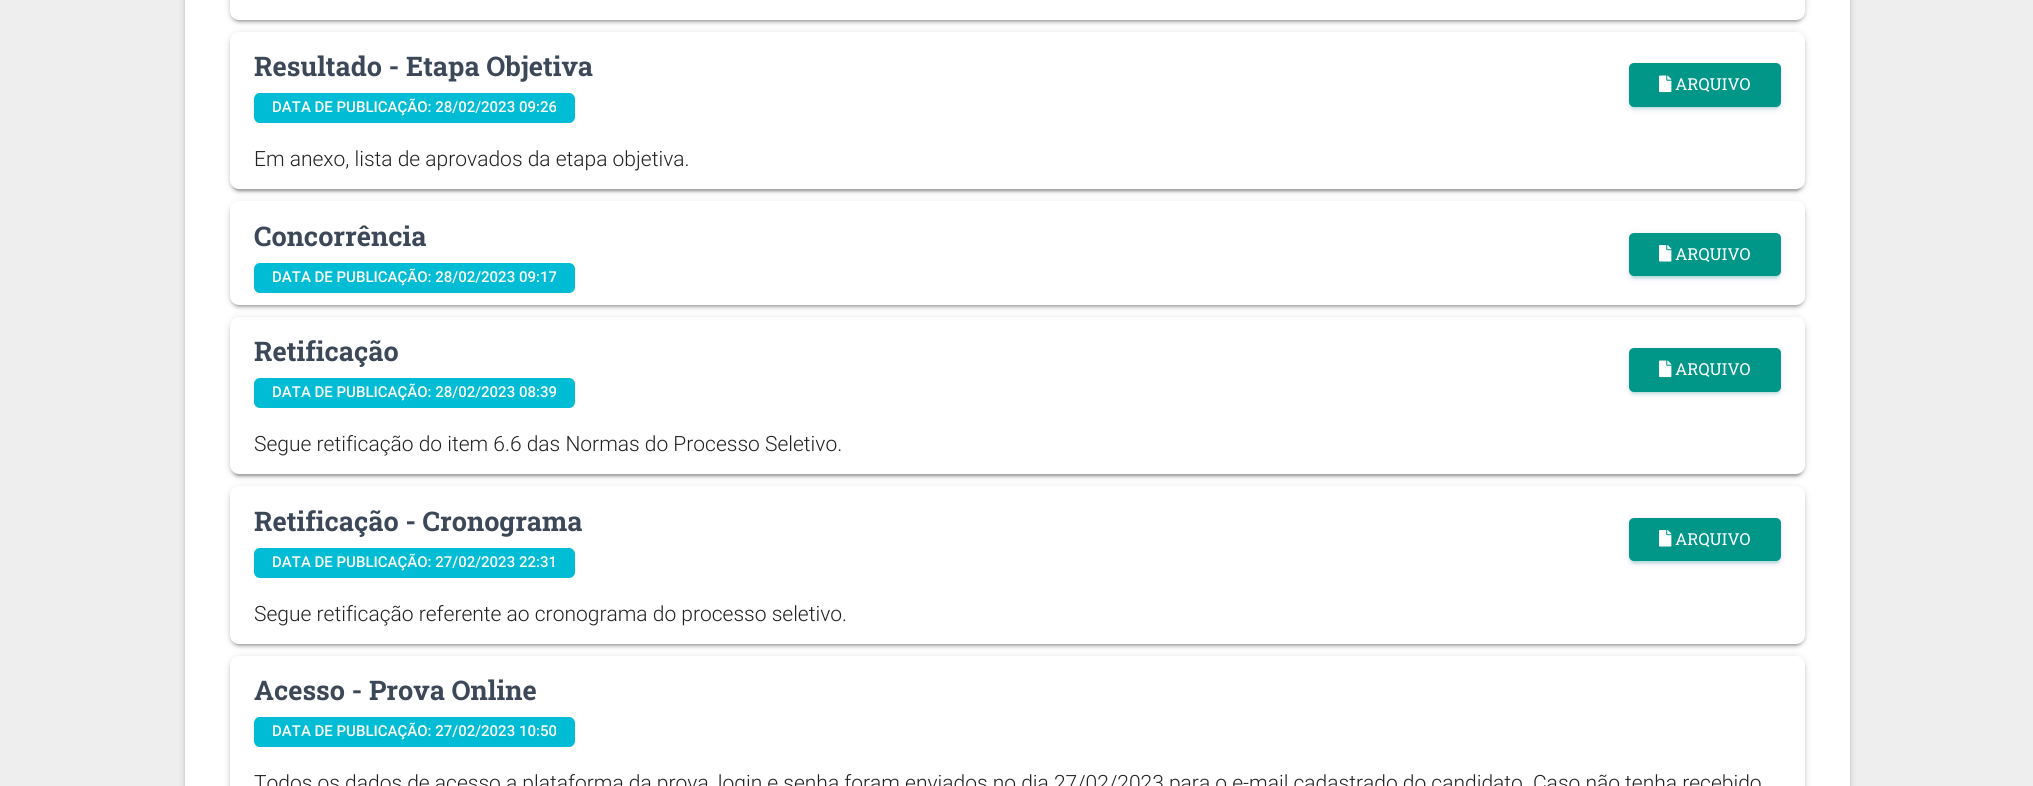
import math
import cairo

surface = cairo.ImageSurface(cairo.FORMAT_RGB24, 2033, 786)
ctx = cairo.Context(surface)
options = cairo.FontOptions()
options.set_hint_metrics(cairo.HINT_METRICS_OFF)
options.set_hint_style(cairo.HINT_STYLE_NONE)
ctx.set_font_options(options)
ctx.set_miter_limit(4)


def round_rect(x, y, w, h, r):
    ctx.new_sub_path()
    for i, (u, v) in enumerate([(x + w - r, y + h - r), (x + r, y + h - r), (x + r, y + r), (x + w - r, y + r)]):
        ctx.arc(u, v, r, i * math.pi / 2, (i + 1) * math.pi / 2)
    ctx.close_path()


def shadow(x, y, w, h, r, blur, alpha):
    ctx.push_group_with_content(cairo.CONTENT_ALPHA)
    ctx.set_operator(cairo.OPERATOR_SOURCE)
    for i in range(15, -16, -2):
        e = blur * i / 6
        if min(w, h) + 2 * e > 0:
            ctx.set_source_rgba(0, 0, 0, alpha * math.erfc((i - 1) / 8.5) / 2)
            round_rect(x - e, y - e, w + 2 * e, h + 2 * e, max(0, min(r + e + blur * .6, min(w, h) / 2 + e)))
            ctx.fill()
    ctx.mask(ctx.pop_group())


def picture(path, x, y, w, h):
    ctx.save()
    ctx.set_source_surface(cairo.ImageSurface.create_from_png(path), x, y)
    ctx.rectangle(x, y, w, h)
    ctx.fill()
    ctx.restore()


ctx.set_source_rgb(0.933, 0.933, 0.933)
ctx.paint()
ctx.set_source_rgb(0, 0, 0)
shadow(185, -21, 1665, 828, 9, 4, 0.12)
shadow(185, -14, 1665, 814, 9, 1.5, 0.14)
ctx.set_source_rgb(1, 1, 1)
ctx.rectangle(185, 0, 1665, 786)
ctx.fill()
ctx.set_source_rgb(0, 0, 0)
shadow(230, -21, 1575, 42, 9, 4, 0.12)
shadow(233, -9, 1569, 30, 6, 1, 0.2)
shadow(230, -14, 1575, 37, 9, 1.5, 0.14)
ctx.set_source_rgb(1, 1, 1)
round_rect(230, -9, 1575, 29, 9)
ctx.fill()
ctx.set_source_rgb(0, 0, 0)
shadow(230, 33, 1575, 158, 9, 4, 0.12)
shadow(233, 39, 1569, 152, 6, 1, 0.2)
shadow(230, 35, 1575, 157, 9, 1.5, 0.14)
ctx.set_source_rgb(1, 1, 1)
round_rect(230, 32, 1575, 157, 9)
ctx.fill()
ctx.select_font_face("Roboto Slab", cairo.FONT_SLANT_NORMAL, cairo.FONT_WEIGHT_BOLD)
ctx.set_font_size(27)
ctx.set_source_rgb(0.235, 0.282, 0.345)
ctx.move_to(254, 76)
ctx.show_text("Resultado - Etapa Objetiva")
ctx.set_source_rgb(0, 0.737, 0.831)
round_rect(254, 93, 321, 30, 6)
ctx.fill()
ctx.select_font_face("Roboto Medium")
ctx.set_font_size(15)
ctx.set_source_rgb(1, 1, 1)
ctx.move_to(272, 112)
ctx.show_text("DATA DE PUBLICAÇÃO: 28/02/2023 09:26")
ctx.set_source_rgb(0.612, 0.153, 0.69)
shadow(1629, 65, 152, 43, 5, 4, 0.12)
ctx.set_source_rgb(0.153, 0.69, 0.537)
shadow(1632, 71, 146, 37, 1.5, 1, 0.2)
ctx.set_source_rgb(0.153, 0.69, 0.639)
shadow(1629, 66, 152, 44, 5, 1.5, 0.14)
ctx.set_source_rgb(0, 0.588, 0.533)
round_rect(1629, 63, 152, 44, 5)
ctx.fill()
picture("img1.png", 1659, 75, 13, 18)
ctx.select_font_face("Roboto Slab")
ctx.set_font_size(16.5)
ctx.set_source_rgb(1, 1, 1)
ctx.move_to(1675, 90)
ctx.show_text("ARQUIVO")
ctx.select_font_face("Roboto Light")
ctx.set_font_size(21)
ctx.set_source_rgb(0.129, 0.129, 0.129)
ctx.move_to(254, 166)
ctx.show_text("Em anexo, lista de aprovados da etapa objetiva.")
ctx.set_source_rgb(0, 0, 0)
shadow(230, 203, 1575, 103, 9, 4, 0.12)
shadow(233, 209, 1569, 97, 6, 1, 0.2)
shadow(230, 204, 1575, 104, 9, 1.5, 0.14)
ctx.set_source_rgb(1, 1, 1)
round_rect(230, 201, 1575, 104, 9)
ctx.fill()
ctx.select_font_face("Roboto Slab", cairo.FONT_SLANT_NORMAL, cairo.FONT_WEIGHT_BOLD)
ctx.set_font_size(27)
ctx.set_source_rgb(0.235, 0.282, 0.345)
ctx.move_to(254, 246)
ctx.show_text("Concorrência")
ctx.set_source_rgb(0, 0.737, 0.831)
round_rect(254, 263, 321, 30, 6)
ctx.fill()
ctx.select_font_face("Roboto Medium")
ctx.set_font_size(15)
ctx.set_source_rgb(1, 1, 1)
ctx.move_to(272, 282)
ctx.show_text("DATA DE PUBLICAÇÃO: 28/02/2023 09:17")
ctx.set_source_rgb(0.612, 0.153, 0.69)
shadow(1629, 234, 152, 44, 5, 4, 0.12)
ctx.set_source_rgb(0.153, 0.69, 0.537)
shadow(1632, 240, 146, 38, 1.5, 1, 0.2)
ctx.set_source_rgb(0.153, 0.69, 0.639)
shadow(1629, 236, 152, 43, 5, 1.5, 0.14)
ctx.set_source_rgb(0, 0.588, 0.533)
round_rect(1629, 233, 152, 43, 5)
ctx.fill()
picture("img2.png", 1659, 245, 13, 17)
ctx.select_font_face("Roboto Slab")
ctx.set_font_size(16.5)
ctx.set_source_rgb(1, 1, 1)
ctx.move_to(1675, 260)
ctx.show_text("ARQUIVO")
ctx.set_source_rgb(0, 0, 0)
shadow(230, 318, 1575, 158, 9, 4, 0.12)
shadow(233, 324, 1569, 152, 6, 1, 0.2)
shadow(230, 320, 1575, 157, 9, 1.5, 0.14)
ctx.set_source_rgb(1, 1, 1)
round_rect(230, 317, 1575, 157, 9)
ctx.fill()
ctx.select_font_face("Roboto Slab", cairo.FONT_SLANT_NORMAL, cairo.FONT_WEIGHT_BOLD)
ctx.set_font_size(27)
ctx.set_source_rgb(0.235, 0.282, 0.345)
ctx.move_to(254, 361)
ctx.show_text("Retificação")
ctx.set_source_rgb(0, 0.737, 0.831)
round_rect(254, 378, 321, 30, 6)
ctx.fill()
ctx.select_font_face("Roboto Medium")
ctx.set_font_size(15)
ctx.set_source_rgb(1, 1, 1)
ctx.move_to(272, 397)
ctx.show_text("DATA DE PUBLICAÇÃO: 28/02/2023 08:39")
ctx.set_source_rgb(0.612, 0.153, 0.69)
shadow(1629, 350, 152, 43, 5, 4, 0.12)
ctx.set_source_rgb(0.153, 0.69, 0.537)
shadow(1632, 356, 146, 37, 1.5, 1, 0.2)
ctx.set_source_rgb(0.153, 0.69, 0.639)
shadow(1629, 351, 152, 44, 5, 1.5, 0.14)
ctx.set_source_rgb(0, 0.588, 0.533)
round_rect(1629, 348, 152, 44, 5)
ctx.fill()
picture("img1.png", 1659, 360, 13, 18)
ctx.select_font_face("Roboto Slab")
ctx.set_font_size(16.5)
ctx.set_source_rgb(1, 1, 1)
ctx.move_to(1675, 375)
ctx.show_text("ARQUIVO")
ctx.select_font_face("Roboto Light")
ctx.set_font_size(21)
ctx.set_source_rgb(0.129, 0.129, 0.129)
ctx.move_to(254, 451)
ctx.show_text("Segue retificação do item 6.6 das Normas do Processo Seletivo.")
ctx.set_source_rgb(0, 0, 0)
shadow(230, 488, 1575, 157, 9, 4, 0.12)
shadow(233, 494, 1569, 151, 6, 1, 0.2)
shadow(230, 489, 1575, 158, 9, 1.5, 0.14)
ctx.set_source_rgb(1, 1, 1)
round_rect(230, 486, 1575, 158, 9)
ctx.fill()
ctx.select_font_face("Roboto Slab", cairo.FONT_SLANT_NORMAL, cairo.FONT_WEIGHT_BOLD)
ctx.set_font_size(27)
ctx.set_source_rgb(0.235, 0.282, 0.345)
ctx.move_to(254, 531)
ctx.show_text("Retificação - Cronograma")
ctx.set_source_rgb(0, 0.737, 0.831)
round_rect(254, 548, 321, 30, 6)
ctx.fill()
ctx.select_font_face("Roboto Medium")
ctx.set_font_size(15)
ctx.set_source_rgb(1, 1, 1)
ctx.move_to(272, 567)
ctx.show_text("DATA DE PUBLICAÇÃO: 27/02/2023 22:31")
ctx.set_source_rgb(0.612, 0.153, 0.69)
shadow(1629, 519, 152, 44, 5, 4, 0.12)
ctx.set_source_rgb(0.153, 0.69, 0.537)
shadow(1632, 525, 146, 38, 1.5, 1, 0.2)
ctx.set_source_rgb(0.153, 0.69, 0.639)
shadow(1629, 521, 152, 43, 5, 1.5, 0.14)
ctx.set_source_rgb(0, 0.588, 0.533)
round_rect(1629, 518, 152, 43, 5)
ctx.fill()
picture("img2.png", 1659, 530, 13, 17)
ctx.select_font_face("Roboto Slab")
ctx.set_font_size(16.5)
ctx.set_source_rgb(1, 1, 1)
ctx.move_to(1675, 545)
ctx.show_text("ARQUIVO")
ctx.select_font_face("Roboto Light")
ctx.set_font_size(21)
ctx.set_source_rgb(0.129, 0.129, 0.129)
ctx.move_to(254, 621)
ctx.show_text("Segue retificação referente ao cronograma do processo seletivo.")
ctx.set_source_rgb(0, 0, 0)
shadow(230, 657, 1575, 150, 9, 4, 0.12)
shadow(230, 659, 1575, 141, 9, 1.5, 0.14)
ctx.set_source_rgb(1, 1, 1)
round_rect(230, 656, 1575, 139, 9)
ctx.fill()
ctx.select_font_face("Roboto Slab", cairo.FONT_SLANT_NORMAL, cairo.FONT_WEIGHT_BOLD)
ctx.set_font_size(27)
ctx.set_source_rgb(0.235, 0.282, 0.345)
ctx.move_to(254, 700)
ctx.show_text("Acesso - Prova Online")
ctx.set_source_rgb(0, 0.737, 0.831)
round_rect(254, 717, 321, 30, 6)
ctx.fill()
ctx.select_font_face("Roboto Medium")
ctx.set_font_size(15)
ctx.set_source_rgb(1, 1, 1)
ctx.move_to(272, 736)
ctx.show_text("DATA DE PUBLICAÇÃO: 27/02/2023 10:50")
ctx.select_font_face("Roboto Light")
ctx.set_font_size(21)
ctx.set_source_rgb(0.129, 0.129, 0.129)
ctx.move_to(254, 790)
ctx.show_text("Todos os dados de acesso a plataforma da prova, login e senha foram enviados no dia 27/02/2023 para o e-mail cadastrado do candidato. Caso não tenha recebido")
surface.write_to_png("page.png")
